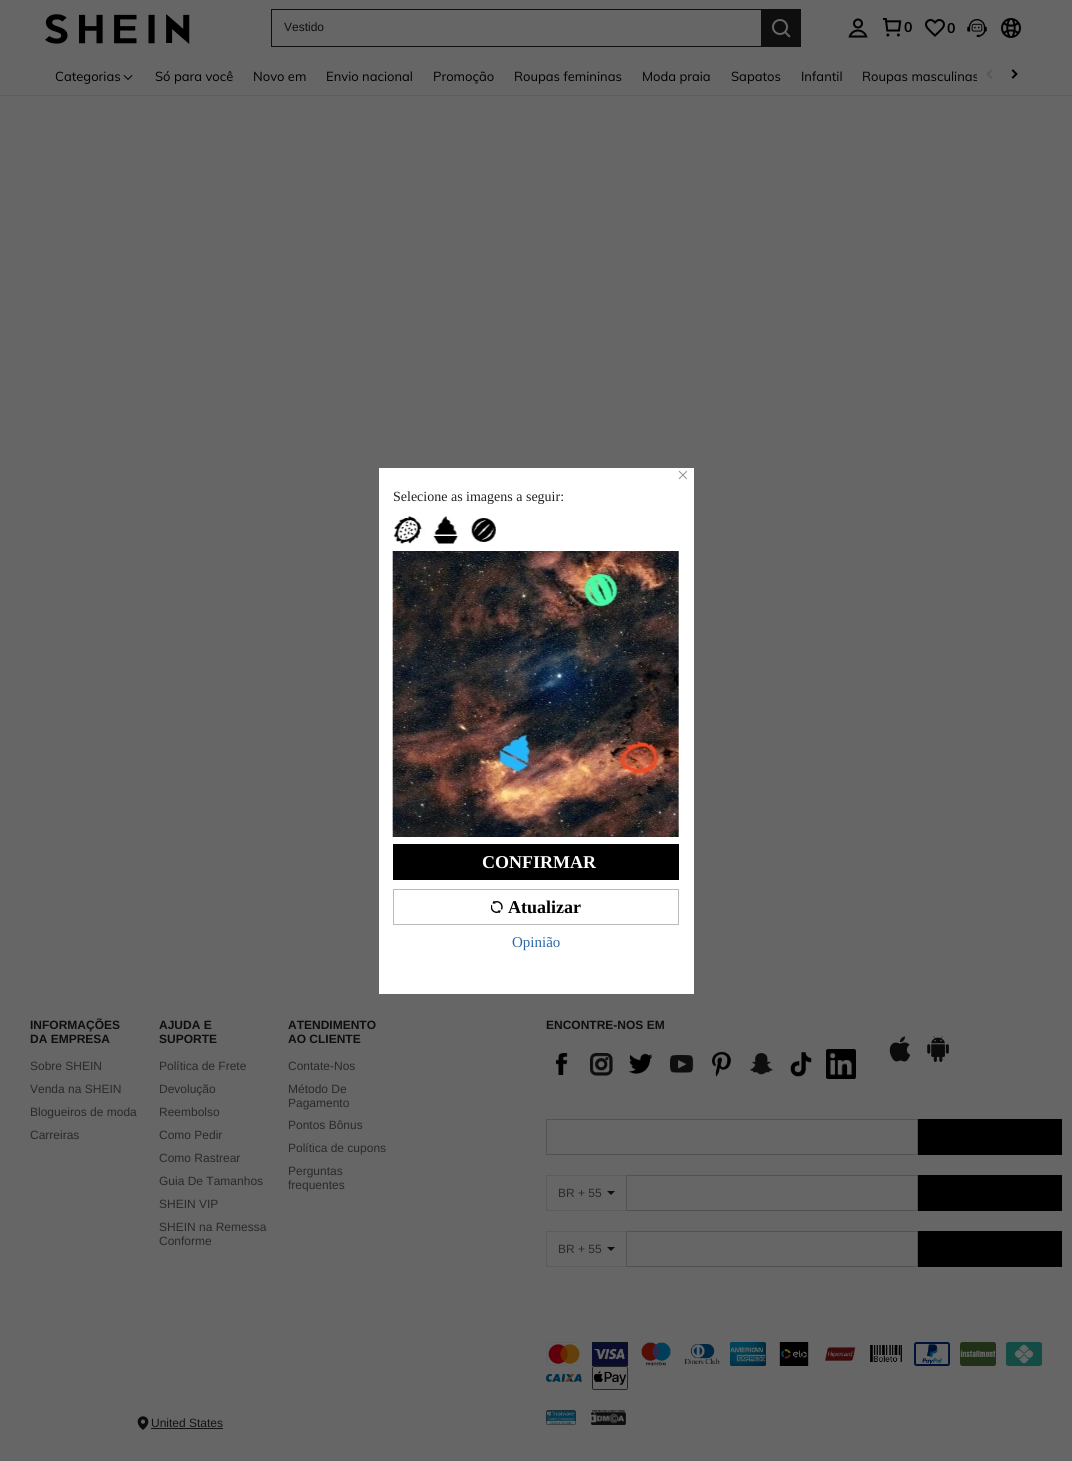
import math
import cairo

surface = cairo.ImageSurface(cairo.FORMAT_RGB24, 1072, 1461)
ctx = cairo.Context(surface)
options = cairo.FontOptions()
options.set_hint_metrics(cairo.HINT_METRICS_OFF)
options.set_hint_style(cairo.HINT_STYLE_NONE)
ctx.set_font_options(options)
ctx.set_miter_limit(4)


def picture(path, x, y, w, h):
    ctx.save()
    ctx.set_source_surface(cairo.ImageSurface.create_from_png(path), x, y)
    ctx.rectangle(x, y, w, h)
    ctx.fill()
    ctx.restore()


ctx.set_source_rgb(0.4, 0.4, 0.4)
ctx.paint()
picture("img1.png", 45, 14, 145, 30)
ctx.set_source_rgb(0.055, 0.055, 0.055)
ctx.rectangle(271, 9, 490, 1)
ctx.fill()
ctx.rectangle(271, 46, 490, 1)
ctx.fill()
ctx.rectangle(271, 9, 1, 38)
ctx.fill()
ctx.select_font_face("Liberation Sans")
ctx.set_font_size(12)
ctx.move_to(284, 31)
ctx.show_text("Vestido")
ctx.rectangle(761, 9, 40, 38)
ctx.fill()
picture("img2.png", 772, 19, 19, 19)
picture("img3.png", 848, 18, 20, 20)
picture("img4.png", 883, 18, 19, 19)
ctx.select_font_face("Muli", cairo.FONT_SLANT_NORMAL, cairo.FONT_WEIGHT_BOLD)
ctx.set_font_size(14)
ctx.set_source_rgb(0, 0, 0)
ctx.move_to(904, 32)
ctx.show_text("0")
picture("img5.png", 925, 19, 20, 18)
ctx.move_to(947, 33)
ctx.show_text("0")
picture("img6.png", 967, 19, 20, 19)
picture("img7.png", 1001, 18, 20, 20)
ctx.set_source_rgb(0.361, 0.361, 0.361)
ctx.rectangle(0, 95, 1072, 1)
ctx.fill()
ctx.select_font_face("Muli")
ctx.set_font_size(13)
ctx.set_source_rgb(0, 0, 0)
ctx.move_to(55, 81)
ctx.show_text("Categorias")
picture("img8.png", 123, 75, 10, 5)
ctx.move_to(155, 81)
ctx.show_text("Só para você")
ctx.move_to(253, 81)
ctx.show_text("Novo em")
ctx.move_to(326, 81)
ctx.show_text("Envio nacional")
ctx.move_to(433, 81)
ctx.show_text("Promoção")
ctx.move_to(514, 81)
ctx.show_text("Roupas femininas")
ctx.move_to(642, 81)
ctx.show_text("Moda praia")
ctx.move_to(731, 81)
ctx.show_text("Sapatos")
ctx.move_to(801, 81)
ctx.show_text("Infantil")
ctx.move_to(862, 81)
ctx.show_text("Roupas masculinas")
ctx.set_source_rgb(0.4, 0.4, 0.4)
ctx.rectangle(977, 74, 2, 7)
ctx.fill()
picture("img9.png", 986, 69, 7, 10)
picture("img10.png", 1011, 69, 7, 10)
ctx.select_font_face("Liberation Sans", cairo.FONT_SLANT_NORMAL, cairo.FONT_WEIGHT_BOLD)
ctx.set_font_size(12)
ctx.set_source_rgb(0.055, 0.055, 0.055)
ctx.move_to(30, 1029)
ctx.show_text("INFORMAÇÕES")
ctx.move_to(30, 1043)
ctx.show_text("DA EMPRESA")
ctx.select_font_face("Liberation Sans")
ctx.set_source_rgb(0.161, 0.161, 0.161)
ctx.move_to(30, 1070)
ctx.show_text("Sobre SHEIN")
ctx.move_to(30, 1093)
ctx.show_text("Venda na SHEIN")
ctx.move_to(30, 1116)
ctx.show_text("Blogueiros de moda")
ctx.move_to(30, 1139)
ctx.show_text("Carreiras")
ctx.select_font_face("Liberation Sans", cairo.FONT_SLANT_NORMAL, cairo.FONT_WEIGHT_BOLD)
ctx.set_source_rgb(0.055, 0.055, 0.055)
ctx.move_to(159, 1029)
ctx.show_text("AJUDA E")
ctx.move_to(159, 1043)
ctx.show_text("SUPORTE")
ctx.select_font_face("Liberation Sans")
ctx.set_source_rgb(0.161, 0.161, 0.161)
ctx.move_to(159, 1070)
ctx.show_text("Política de Frete")
ctx.move_to(159, 1093)
ctx.show_text("Devolução")
ctx.move_to(159, 1116)
ctx.show_text("Reembolso")
ctx.move_to(159, 1139)
ctx.show_text("Como Pedir")
ctx.move_to(159, 1162)
ctx.show_text("Como Rastrear")
ctx.move_to(159, 1185)
ctx.show_text("Guia De Tamanhos")
ctx.move_to(159, 1208)
ctx.show_text("SHEIN VIP")
ctx.move_to(159, 1231)
ctx.show_text("SHEIN na Remessa")
ctx.move_to(159, 1245)
ctx.show_text("Conforme")
ctx.select_font_face("Liberation Sans", cairo.FONT_SLANT_NORMAL, cairo.FONT_WEIGHT_BOLD)
ctx.set_source_rgb(0.055, 0.055, 0.055)
ctx.move_to(288, 1029)
ctx.show_text("ATENDIMENTO")
ctx.move_to(288, 1043)
ctx.show_text("AO CLIENTE")
ctx.select_font_face("Liberation Sans")
ctx.set_source_rgb(0.161, 0.161, 0.161)
ctx.move_to(288, 1070)
ctx.show_text("Contate-Nos")
ctx.move_to(288, 1093)
ctx.show_text("Método De")
ctx.move_to(288, 1107)
ctx.show_text("Pagamento")
ctx.move_to(288, 1129)
ctx.show_text("Pontos Bônus")
ctx.move_to(288, 1152)
ctx.show_text("Política de cupons")
ctx.move_to(288, 1175)
ctx.show_text("Perguntas")
ctx.move_to(288, 1189)
ctx.show_text("frequentes")
ctx.select_font_face("Liberation Sans", cairo.FONT_SLANT_NORMAL, cairo.FONT_WEIGHT_BOLD)
ctx.set_source_rgb(0.055, 0.055, 0.055)
ctx.move_to(546, 1029)
ctx.show_text("ENCONTRE-NOS EM")
picture("img11.png", 556, 1053, 12, 22)
picture("img12.png", 590, 1053, 23, 23)
picture("img13.png", 628, 1053, 25, 21)
picture("img14.png", 670, 1055, 24, 18)
picture("img15.png", 712, 1051, 20, 26)
picture("img16.png", 750, 1053, 23, 22)
picture("img17.png", 790, 1052, 22, 25)
picture("img18.png", 826, 1049, 30, 30)
picture("img19.png", 889, 1036, 22, 26)
picture("img20.png", 927, 1036, 22, 26)
ctx.rectangle(546.5, 1119.5, 371, 35)
ctx.set_source_rgb(0.322, 0.322, 0.322)
ctx.set_line_width(1)
ctx.stroke()
ctx.set_source_rgb(0, 0, 0)
ctx.rectangle(918, 1119, 144, 36)
ctx.fill()
ctx.set_source_rgb(0.361, 0.361, 0.361)
ctx.rectangle(546, 1175, 80, 1)
ctx.fill()
ctx.rectangle(546, 1210, 80, 1)
ctx.fill()
ctx.rectangle(546, 1175, 1, 36)
ctx.fill()
ctx.select_font_face("Liberation Sans")
ctx.set_source_rgb(0.161, 0.161, 0.161)
ctx.move_to(558, 1197)
ctx.show_text("BR + 55")
ctx.set_source_rgb(0.055, 0.055, 0.055)
ctx.new_path()
ctx.move_to(607, 1191)
ctx.line_to(615, 1191)
ctx.line_to(611, 1195)
ctx.close_path()
ctx.fill()
ctx.rectangle(626.5, 1175.5, 291, 35)
ctx.set_source_rgb(0.322, 0.322, 0.322)
ctx.stroke()
ctx.set_source_rgb(0, 0, 0)
ctx.rectangle(918, 1175, 144, 36)
ctx.fill()
ctx.set_source_rgb(0.361, 0.361, 0.361)
ctx.rectangle(546, 1231, 80, 1)
ctx.fill()
ctx.rectangle(546, 1266, 80, 1)
ctx.fill()
ctx.rectangle(546, 1231, 1, 36)
ctx.fill()
ctx.set_source_rgb(0.161, 0.161, 0.161)
ctx.move_to(558, 1253)
ctx.show_text("BR + 55")
ctx.set_source_rgb(0.055, 0.055, 0.055)
ctx.new_path()
ctx.move_to(607, 1247)
ctx.line_to(615, 1247)
ctx.line_to(611, 1251)
ctx.close_path()
ctx.fill()
ctx.rectangle(626.5, 1231.5, 291, 35)
ctx.set_source_rgb(0.322, 0.322, 0.322)
ctx.stroke()
ctx.set_source_rgb(0, 0, 0)
ctx.rectangle(918, 1231, 144, 36)
ctx.fill()
picture("img21.png", 546, 1342, 35, 24)
picture("img22.png", 592, 1342, 36, 24)
picture("img23.png", 638, 1342, 36, 24)
picture("img24.png", 684, 1342, 36, 24)
picture("img25.png", 730, 1342, 36, 24)
picture("img26.png", 776, 1342, 36, 24)
picture("img27.png", 822, 1342, 36, 24)
picture("img28.png", 868, 1342, 36, 24)
picture("img29.png", 914, 1342, 36, 24)
picture("img30.png", 960, 1342, 36, 24)
picture("img31.png", 1006, 1342, 36, 24)
picture("img32.png", 546, 1374, 36, 8)
picture("img33.png", 592, 1366, 36, 24)
picture("img34.png", 137, 1416, 12, 14)
ctx.set_source_rgb(0.078, 0.078, 0.078)
ctx.move_to(151, 1427)
ctx.show_text("United States")
ctx.rectangle(151, 1428, 72, 1)
ctx.fill()
picture("img35.png", 546, 1410, 30, 15)
picture("img36.png", 591, 1410, 35, 15)
ctx.set_source_rgb(1, 1, 1)
ctx.rectangle(379, 468, 315, 526)
ctx.fill()
ctx.select_font_face("Liberation Serif")
ctx.set_font_size(21)
ctx.set_source_rgb(0.584, 0.584, 0.584)
ctx.move_to(677, 482)
ctx.show_text("×")
ctx.set_font_size(14)
ctx.set_source_rgb(0.133, 0.133, 0.133)
ctx.move_to(393, 501)
ctx.show_text("Selecione as imagens a seguir:")
picture("img37.png", 393, 516, 103, 28)
picture("img38.png", 392, 551, 287, 286)
ctx.set_source_rgb(0, 0, 0)
ctx.rectangle(393, 844, 286, 36)
ctx.fill()
ctx.select_font_face("Liberation Serif", cairo.FONT_SLANT_NORMAL, cairo.FONT_WEIGHT_BOLD)
ctx.set_font_size(18)
ctx.set_source_rgb(1, 1, 1)
ctx.move_to(482, 868)
ctx.show_text("CONFIRMAR")
ctx.rectangle(393.5, 889.5, 285, 35)
ctx.set_source_rgb(0.733, 0.733, 0.733)
ctx.stroke()
picture("img39.png", 491, 900, 12, 14)
ctx.set_source_rgb(0, 0, 0)
ctx.move_to(508, 913)
ctx.show_text("Atualizar")
ctx.select_font_face("Liberation Serif")
ctx.set_font_size(15)
ctx.set_source_rgb(0.176, 0.408, 0.659)
ctx.move_to(512, 947)
ctx.show_text("Opinião")
surface.write_to_png("page.png")
